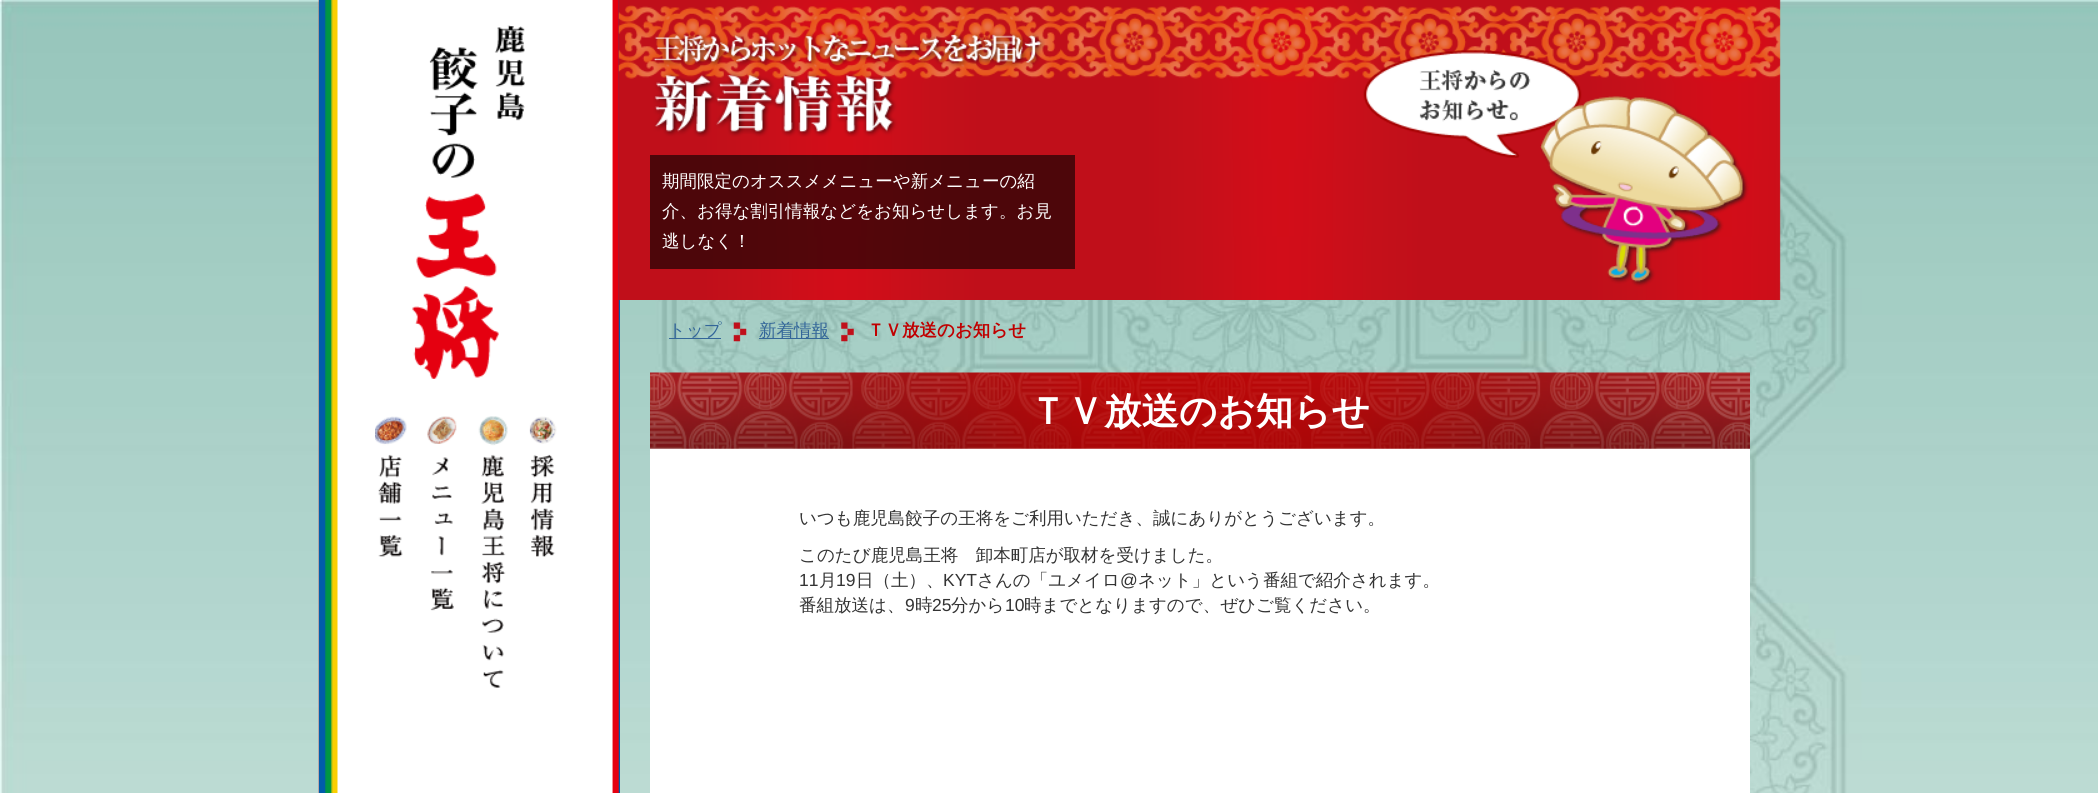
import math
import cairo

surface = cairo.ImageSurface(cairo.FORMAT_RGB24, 2098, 793)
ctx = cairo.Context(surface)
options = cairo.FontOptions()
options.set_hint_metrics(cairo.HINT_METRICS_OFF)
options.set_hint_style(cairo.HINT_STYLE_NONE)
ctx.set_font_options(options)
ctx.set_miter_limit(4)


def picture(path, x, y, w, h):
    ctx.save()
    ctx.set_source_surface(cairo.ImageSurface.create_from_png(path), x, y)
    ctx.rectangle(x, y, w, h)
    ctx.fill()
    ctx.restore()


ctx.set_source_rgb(1, 1, 1)
ctx.paint()
picture("img1.png", 0, 0, 2098, 793)
picture("img2.png", 318, 0, 302, 793)
picture("img3.png", 412, 25, 113, 354)
picture("img4.png", 375, 416, 32, 141)
picture("img5.png", 427, 416, 30, 195)
picture("img6.png", 478, 416, 30, 272)
picture("img7.png", 529, 416, 28, 141)
picture("img8.png", 618, 0, 1163, 300)
picture("img9.png", 653, 32, 392, 105)
picture("img10.png", 1363, 50, 219, 108)
picture("img11.png", 1540, 96, 209, 191)
ctx.set_source_rgba(0, 0, 0, 0.6)
ctx.rectangle(650, 155, 425, 114)
ctx.fill()
ctx.select_font_face("WenQuanYi Zen Hei Medium")
ctx.set_font_size(17.5)
ctx.set_source_rgb(1, 1, 1)
ctx.move_to(662, 187)
ctx.show_text("期間限定のオススメメニューや新メニューの紹")
ctx.move_to(662, 217)
ctx.show_text("介、お得な割引情報などをお知らせします。お見")
ctx.move_to(662, 247)
ctx.show_text("逃しなく！")
ctx.set_source_rgb(0.2, 0.4, 0.6)
ctx.rectangle(669, 338, 52, 1)
ctx.fill()
ctx.move_to(668, 336)
ctx.show_text("トップ")
picture("img12.png", 733, 322, 14, 20)
ctx.rectangle(759, 338, 70, 1)
ctx.fill()
ctx.move_to(759, 336)
ctx.show_text("新着情報")
picture("img13.png", 841, 322, 13, 20)
ctx.select_font_face("WenQuanYi Zen Hei", cairo.FONT_SLANT_NORMAL, cairo.FONT_WEIGHT_BOLD)
ctx.set_source_rgb(0.753, 0, 0)
ctx.move_to(867, 336)
ctx.show_text("ＴＶ放送のお知らせ")
ctx.set_source_rgb(1, 1, 1)
ctx.rectangle(650, 448, 1100, 345)
ctx.fill()
picture("img14.png", 650, 372, 1100, 77)
ctx.set_font_size(37.5)
ctx.move_to(1029, 424)
ctx.show_text("ＴＶ放送のお知らせ")
ctx.select_font_face("WenQuanYi Zen Hei Medium")
ctx.set_font_size(17.5)
ctx.set_source_rgb(0.2, 0.2, 0.2)
ctx.move_to(799, 524)
ctx.show_text("いつも鹿児島餃子の王将をご利用いただき、誠にありがとうございます。")
ctx.move_to(799, 561)
ctx.show_text("このたび鹿児島王将　卸本町店が取材を受けました。")
ctx.select_font_face("Liberation Sans")
ctx.move_to(799, 586)
ctx.show_text("11")
ctx.select_font_face("WenQuanYi Zen Hei Medium")
ctx.move_to(819, 586)
ctx.show_text("月")
ctx.select_font_face("Liberation Sans")
ctx.move_to(836, 586)
ctx.show_text("19")
ctx.select_font_face("WenQuanYi Zen Hei Medium")
ctx.move_to(856, 586)
ctx.show_text("日（土）、")
ctx.select_font_face("Liberation Sans")
ctx.move_to(943, 586)
ctx.show_text("KYT")
ctx.select_font_face("WenQuanYi Zen Hei Medium")
ctx.move_to(977, 586)
ctx.show_text("さんの「ユメイロ")
ctx.select_font_face("Liberation Sans")
ctx.move_to(1120, 586)
ctx.show_text("@")
ctx.select_font_face("WenQuanYi Zen Hei Medium")
ctx.move_to(1138, 586)
ctx.show_text("ネット」という番組で紹介されます。")
ctx.move_to(799, 611)
ctx.show_text("番組放送は、")
ctx.select_font_face("Liberation Sans")
ctx.move_to(905, 611)
ctx.show_text("9")
ctx.select_font_face("WenQuanYi Zen Hei Medium")
ctx.move_to(915, 611)
ctx.show_text("時")
ctx.select_font_face("Liberation Sans")
ctx.move_to(932, 611)
ctx.show_text("25")
ctx.select_font_face("WenQuanYi Zen Hei Medium")
ctx.move_to(951, 611)
ctx.show_text("分から")
ctx.select_font_face("Liberation Sans")
ctx.move_to(1005, 611)
ctx.show_text("10")
ctx.select_font_face("WenQuanYi Zen Hei Medium")
ctx.move_to(1024, 611)
ctx.show_text("時までとなりますので、ぜひご覧ください。")
surface.write_to_png("page.png")
